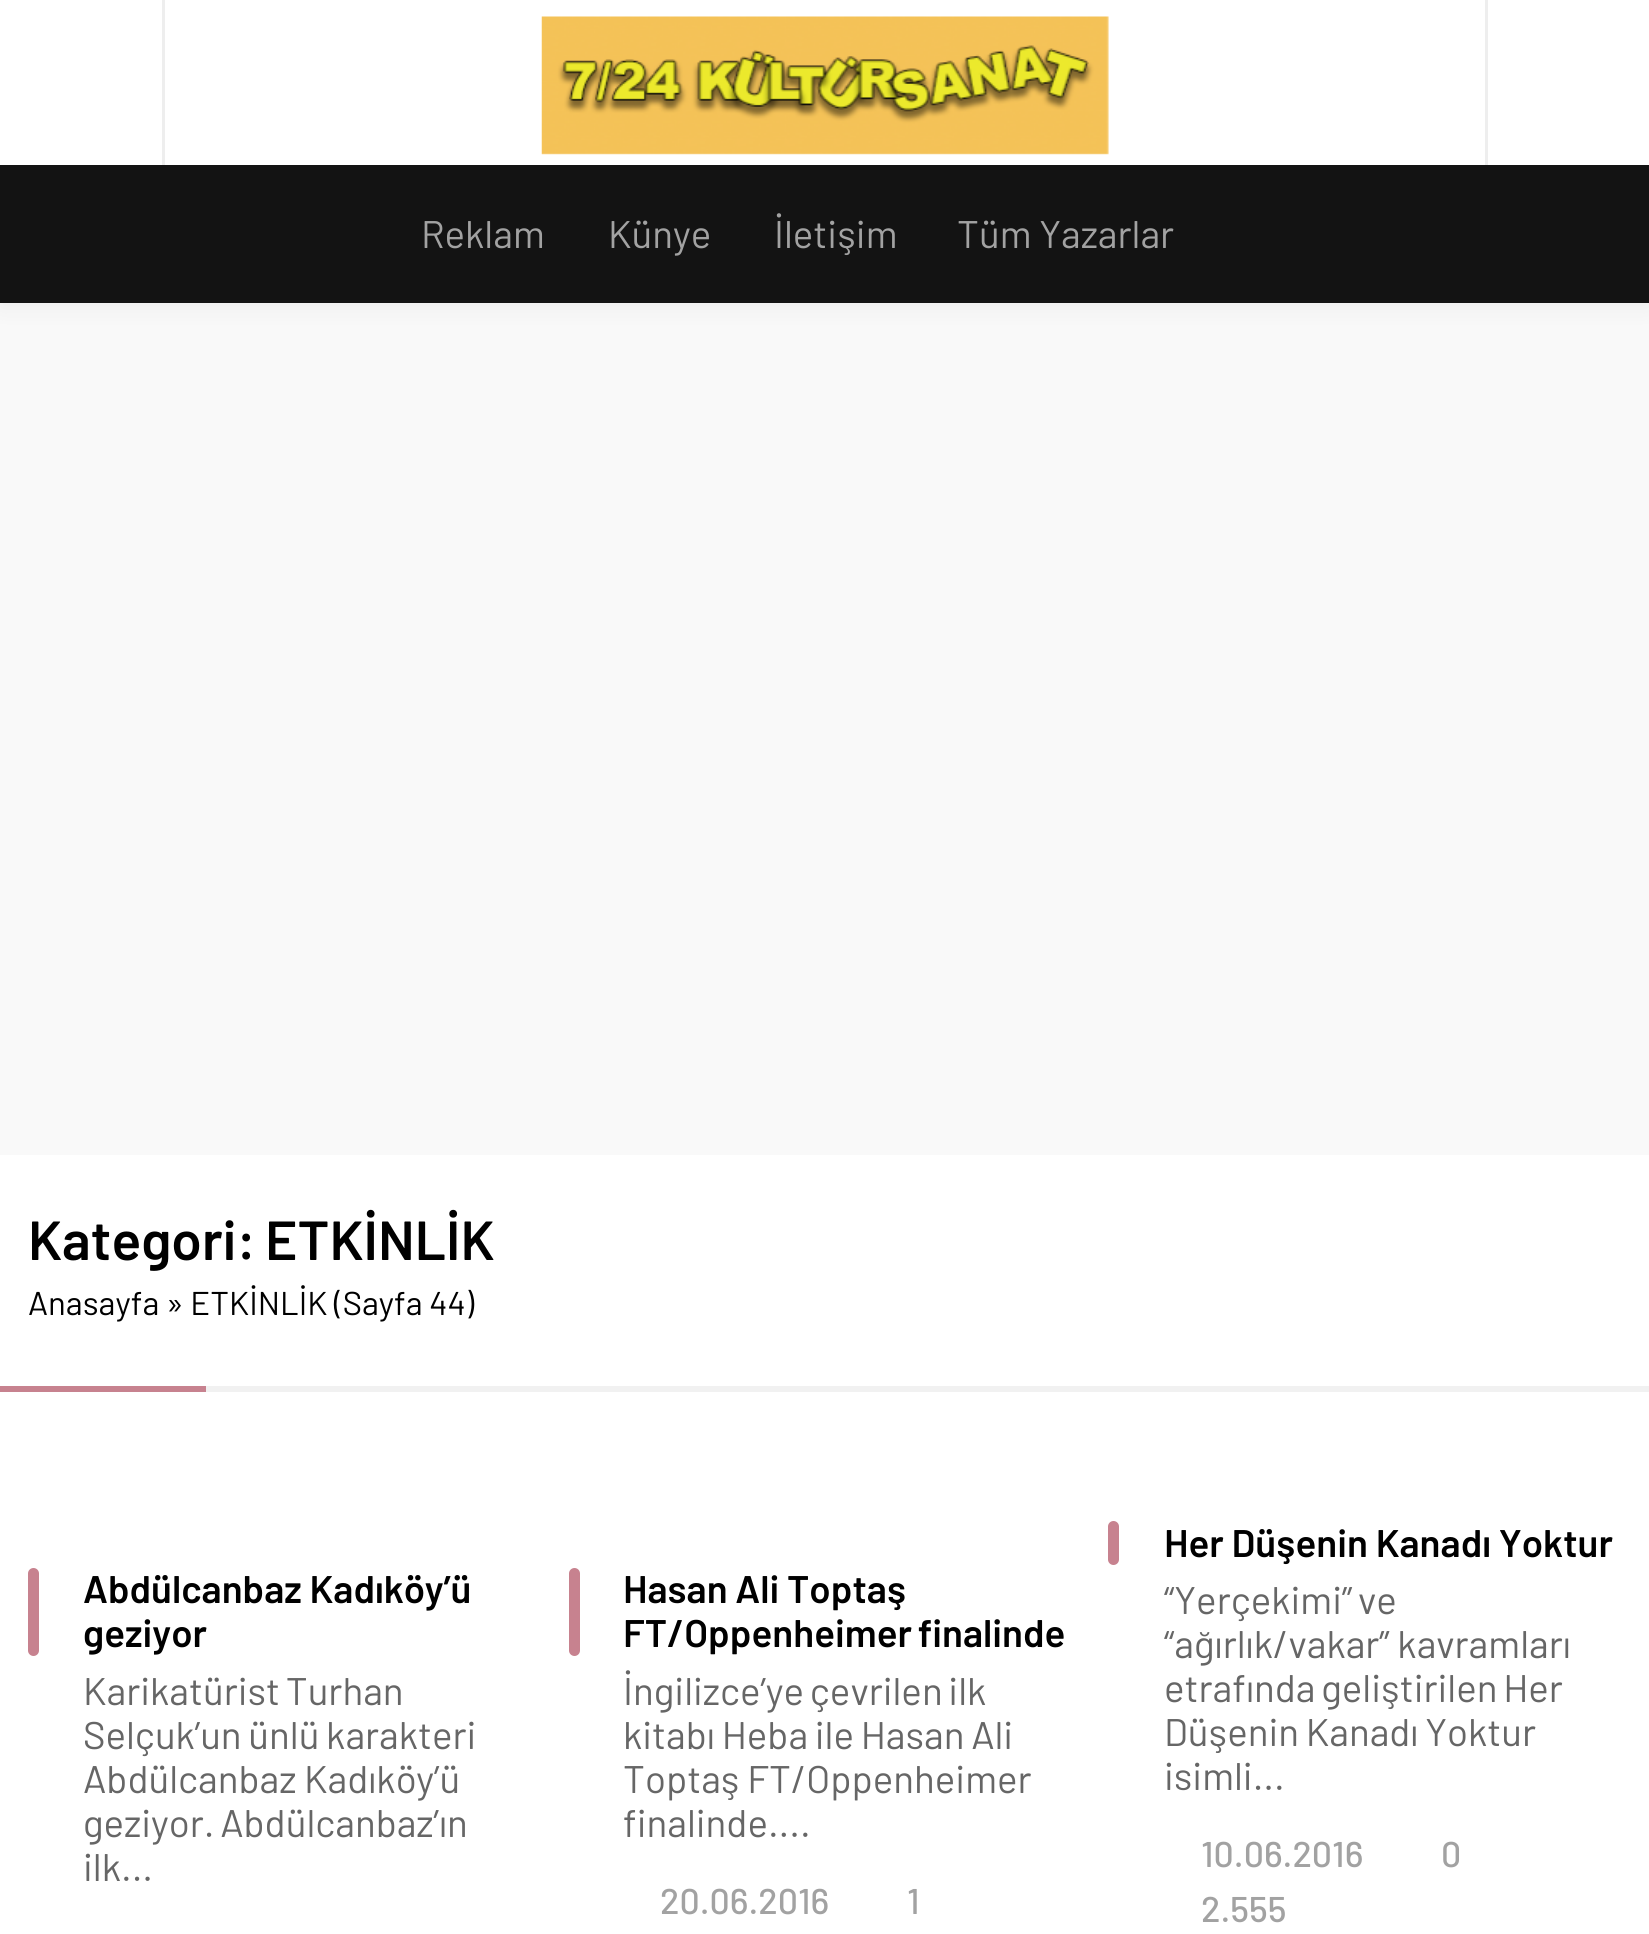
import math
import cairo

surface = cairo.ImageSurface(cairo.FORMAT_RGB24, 1649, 1934)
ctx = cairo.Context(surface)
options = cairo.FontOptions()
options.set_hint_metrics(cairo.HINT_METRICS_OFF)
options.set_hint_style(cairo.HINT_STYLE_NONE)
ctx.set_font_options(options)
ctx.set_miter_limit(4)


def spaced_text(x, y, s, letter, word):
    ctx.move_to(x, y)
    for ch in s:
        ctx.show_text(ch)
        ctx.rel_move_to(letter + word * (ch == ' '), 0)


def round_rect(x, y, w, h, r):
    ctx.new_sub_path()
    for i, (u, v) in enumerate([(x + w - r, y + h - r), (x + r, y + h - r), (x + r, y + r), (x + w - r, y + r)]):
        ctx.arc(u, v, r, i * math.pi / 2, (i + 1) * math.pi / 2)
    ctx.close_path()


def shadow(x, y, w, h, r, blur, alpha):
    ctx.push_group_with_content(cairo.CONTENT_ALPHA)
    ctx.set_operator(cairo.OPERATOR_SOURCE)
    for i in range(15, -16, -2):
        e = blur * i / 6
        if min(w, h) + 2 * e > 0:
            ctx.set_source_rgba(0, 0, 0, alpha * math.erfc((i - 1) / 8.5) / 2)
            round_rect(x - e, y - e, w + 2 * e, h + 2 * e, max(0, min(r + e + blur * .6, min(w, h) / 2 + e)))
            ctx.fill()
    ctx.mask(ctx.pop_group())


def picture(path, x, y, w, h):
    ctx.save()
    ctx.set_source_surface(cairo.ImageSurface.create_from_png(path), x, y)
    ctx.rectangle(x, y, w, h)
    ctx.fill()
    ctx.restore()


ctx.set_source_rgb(0.973, 0.973, 0.973)
ctx.paint()
ctx.set_source_rgb(0, 0, 0)
shadow(0, 171, 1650, 137, 0, 11, 0.05)
ctx.set_source_rgb(1, 1, 1)
ctx.rectangle(0, 0, 1649, 165)
ctx.fill()
ctx.set_source_rgb(0.933, 0.933, 0.933)
ctx.rectangle(162, 0, 3, 165)
ctx.fill()
picture("img1.png", 541, 16, 568, 139)
ctx.rectangle(1485, 0, 3, 165)
ctx.fill()
ctx.set_source_rgb(0.075, 0.075, 0.075)
ctx.rectangle(0, 165, 1649, 138)
ctx.fill()
ctx.select_font_face("Barlow")
ctx.set_font_size(38.5)
ctx.set_source_rgb(0.635, 0.635, 0.635)
ctx.move_to(421, 248)
ctx.show_text("Reklam")
ctx.move_to(608, 248)
ctx.show_text("Künye")
ctx.move_to(774, 248)
ctx.show_text("İletişim")
ctx.move_to(957, 248)
ctx.show_text("Tüm Yazarlar")
ctx.set_source_rgb(1, 1, 1)
ctx.rectangle(0, 1155, 1649, 779)
ctx.fill()
ctx.select_font_face("Barlow SemiBold")
ctx.set_font_size(55)
ctx.set_source_rgb(0, 0, 0)
ctx.move_to(28, 1260)
ctx.show_text("Kategori:")
ctx.move_to(265, 1260)
ctx.show_text("ETKİNLİK")
ctx.select_font_face("Barlow")
ctx.set_font_size(33)
ctx.move_to(28, 1315)
ctx.show_text("Anasayfa » ETKİNLİK (Sayfa 44)")
ctx.set_source_rgb(0.78, 0.51, 0.561)
ctx.rectangle(0, 1386, 206, 6)
ctx.fill()
ctx.set_source_rgb(0.945, 0.945, 0.945)
ctx.rectangle(206, 1386, 1443, 6)
ctx.fill()
ctx.set_source_rgb(0.78, 0.51, 0.561)
round_rect(28, 1568, 11, 88, 5.5)
ctx.fill()
ctx.select_font_face("Barlow SemiBold")
ctx.set_font_size(38.5)
ctx.set_source_rgb(0, 0, 0)
ctx.move_to(83, 1603)
ctx.show_text("Abdülcanbaz Kadıköy’ü")
ctx.move_to(83, 1647)
ctx.show_text("geziyor")
ctx.select_font_face("Barlow")
ctx.set_source_rgb(0.4, 0.4, 0.4)
spaced_text(83, 1705, "Karikatürist Turhan", 0, -2)
spaced_text(83, 1749, "Selçuk’un ünlü karakteri", 0, -1)
ctx.move_to(83, 1793)
ctx.show_text("Abdülcanbaz Kadıköy’ü")
spaced_text(83, 1837, "geziyor. Abdülcanbaz’ın", 0, -2)
ctx.move_to(83, 1881)
ctx.show_text("ilk...")
ctx.set_source_rgb(0.78, 0.51, 0.561)
round_rect(569, 1568, 11, 88, 5.5)
ctx.fill()
ctx.select_font_face("Barlow SemiBold")
ctx.set_source_rgb(0, 0, 0)
ctx.move_to(623, 1603)
ctx.show_text("Hasan Ali Toptaş")
spaced_text(623, 1647, "FT/Oppenheimer finalinde", 0, -2)
ctx.select_font_face("Barlow")
ctx.set_source_rgb(0.4, 0.4, 0.4)
spaced_text(623, 1705, "İngilizce’ye çevrilen ilk", 0, -2)
spaced_text(623, 1749, "kitabı Heba ile Hasan Ali", 0, -1)
ctx.move_to(623, 1793)
ctx.show_text("Toptaş FT/Oppenheimer")
ctx.move_to(623, 1837)
ctx.show_text("finalinde....")
ctx.select_font_face("Barlow Medium")
ctx.set_font_size(35.75)
ctx.set_source_rgb(0.635, 0.635, 0.635)
ctx.move_to(660, 1914)
ctx.show_text("20.06.2016")
ctx.move_to(907, 1914)
ctx.show_text("1")
ctx.set_source_rgb(0.78, 0.51, 0.561)
round_rect(1108, 1521, 11, 44, 5.5)
ctx.fill()
ctx.select_font_face("Barlow SemiBold")
ctx.set_font_size(38.5)
ctx.set_source_rgb(0, 0, 0)
ctx.move_to(1164, 1557)
ctx.show_text("Her Düşenin Kanadı Yoktur")
ctx.select_font_face("Barlow")
ctx.set_source_rgb(0.4, 0.4, 0.4)
spaced_text(1164, 1614, "“Yerçekimi” ve", 0, -2)
ctx.move_to(1164, 1658)
ctx.show_text("“ağırlık/vakar” kavramları")
spaced_text(1164, 1702, "etrafında geliştirilen Her", 0, -2)
spaced_text(1164, 1746, "Düşenin Kanadı Yoktur", 0, -1)
ctx.move_to(1164, 1790)
ctx.show_text("isimli...")
ctx.select_font_face("Barlow Medium")
ctx.set_font_size(35.75)
ctx.set_source_rgb(0.635, 0.635, 0.635)
ctx.move_to(1201, 1867)
ctx.show_text("10.06.2016")
ctx.move_to(1441, 1867)
ctx.show_text("0")
ctx.move_to(1201, 1922)
ctx.show_text("2.555")
surface.write_to_png("page.png")
